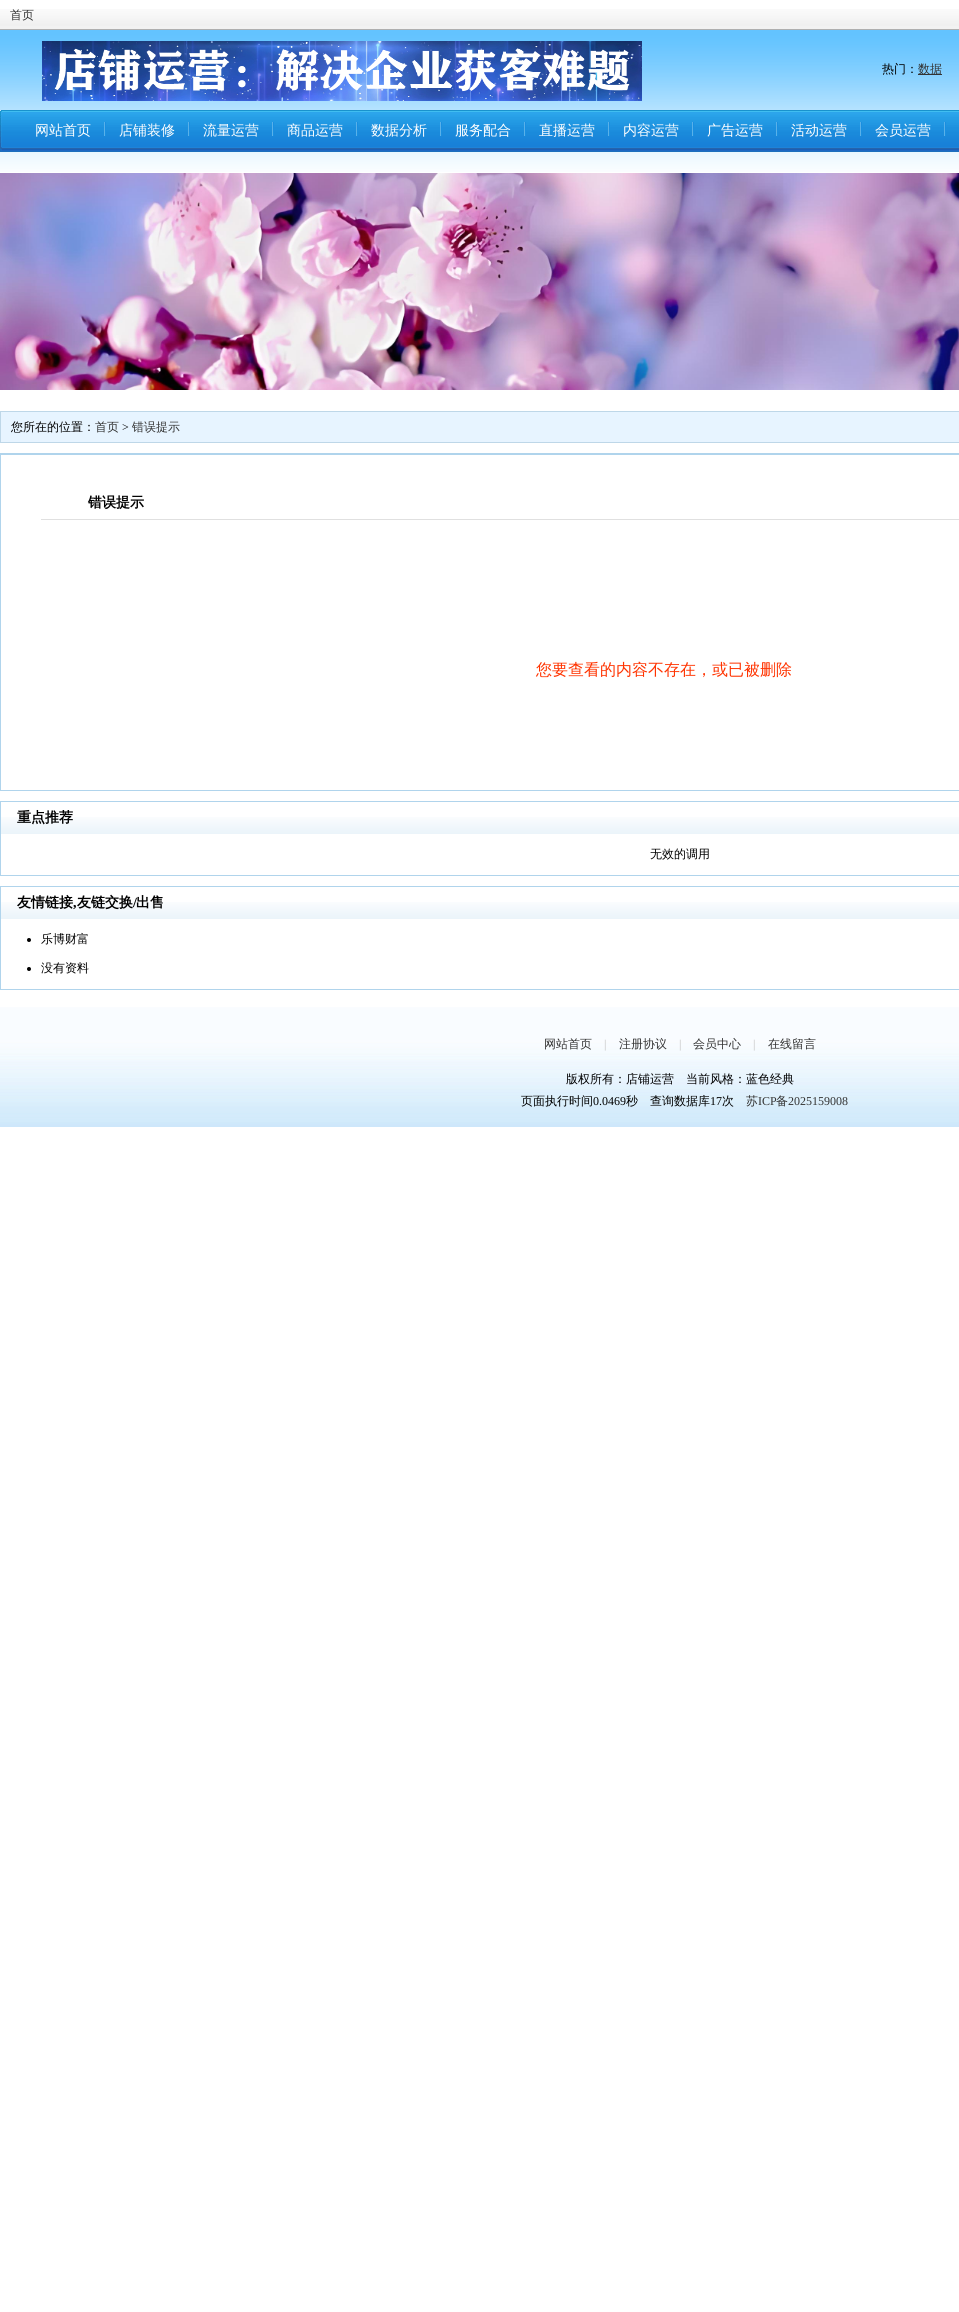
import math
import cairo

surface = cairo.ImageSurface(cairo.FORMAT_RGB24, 959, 2312)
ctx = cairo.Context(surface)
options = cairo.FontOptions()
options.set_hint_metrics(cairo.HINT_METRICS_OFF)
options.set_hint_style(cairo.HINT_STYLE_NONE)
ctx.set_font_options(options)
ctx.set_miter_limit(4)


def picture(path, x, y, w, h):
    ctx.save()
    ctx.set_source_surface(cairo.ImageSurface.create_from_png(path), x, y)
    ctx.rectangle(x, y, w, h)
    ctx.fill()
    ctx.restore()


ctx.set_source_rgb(1, 1, 1)
ctx.paint()
picture("img1.png", 0, 9, 959, 163)
ctx.select_font_face("WenQuanYi Zen Hei Medium")
ctx.set_font_size(12)
ctx.set_source_rgb(0.2, 0.2, 0.2)
ctx.move_to(10, 19)
ctx.show_text("首页")
picture("img2.png", 42, 41, 600, 60)
ctx.set_source_rgb(0, 0, 0)
ctx.move_to(882, 73)
ctx.show_text("热门：")
ctx.set_source_rgb(0.2, 0.2, 0.2)
ctx.rectangle(918, 74, 24, 1)
ctx.fill()
ctx.move_to(918, 73)
ctx.show_text("数据")
picture("img3.png", 0, 151, 959, 1)
picture("img4.png", 0, 110, 2, 41)
picture("img5.png", 2, 110, 957, 41)
ctx.set_font_size(14)
ctx.set_source_rgb(1, 1, 1)
ctx.move_to(35, 135)
ctx.show_text("网站首页")
picture("img6.png", 104, 122, 2, 14)
ctx.move_to(119, 135)
ctx.show_text("店铺装修")
picture("img6.png", 188, 122, 2, 14)
ctx.move_to(203, 135)
ctx.show_text("流量运营")
picture("img6.png", 272, 122, 2, 14)
ctx.move_to(287, 135)
ctx.show_text("商品运营")
picture("img6.png", 356, 122, 2, 14)
ctx.move_to(371, 135)
ctx.show_text("数据分析")
picture("img6.png", 440, 122, 2, 14)
ctx.move_to(455, 135)
ctx.show_text("服务配合")
picture("img6.png", 524, 122, 2, 14)
ctx.move_to(539, 135)
ctx.show_text("直播运营")
picture("img6.png", 608, 122, 2, 14)
ctx.move_to(623, 135)
ctx.show_text("内容运营")
picture("img6.png", 692, 122, 2, 14)
ctx.move_to(707, 135)
ctx.show_text("广告运营")
picture("img6.png", 776, 122, 2, 14)
ctx.move_to(791, 135)
ctx.show_text("活动运营")
picture("img6.png", 860, 122, 2, 14)
ctx.move_to(875, 135)
ctx.show_text("会员运营")
picture("img6.png", 944, 122, 2, 14)
picture("img7.png", 0, 173, 959, 217)
ctx.set_source_rgb(0.906, 0.957, 1)
ctx.rectangle(0.5, 411.5, 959, 31)
ctx.fill_preserve()
ctx.set_source_rgb(0.745, 0.843, 0.91)
ctx.set_line_width(1)
ctx.stroke()
ctx.set_font_size(12)
ctx.set_source_rgb(0, 0, 0)
ctx.move_to(11, 431)
ctx.show_text("您所在的位置：")
ctx.set_source_rgb(0.2, 0.2, 0.2)
ctx.move_to(95, 431)
ctx.show_text("首页")
ctx.select_font_face("Liberation Serif")
ctx.set_source_rgb(0, 0, 0)
ctx.move_to(122, 431)
ctx.show_text(">")
ctx.select_font_face("WenQuanYi Zen Hei Medium")
ctx.set_source_rgb(0.2, 0.2, 0.2)
ctx.move_to(132, 431)
ctx.show_text("错误提示")
ctx.set_source_rgb(0.69, 0.831, 0.925)
ctx.rectangle(0, 453, 959, 2)
ctx.fill()
ctx.rectangle(0, 790, 959, 1)
ctx.fill()
ctx.rectangle(0, 453, 1, 338)
ctx.fill()
ctx.set_source_rgb(0.878, 0.878, 0.878)
ctx.rectangle(41, 519, 918, 1)
ctx.fill()
ctx.select_font_face("WenQuanYi Zen Hei", cairo.FONT_SLANT_NORMAL, cairo.FONT_WEIGHT_BOLD)
ctx.set_font_size(14)
ctx.set_source_rgb(0, 0, 0)
ctx.move_to(88, 507)
ctx.show_text("错误提示")
ctx.select_font_face("WenQuanYi Zen Hei Medium")
ctx.set_font_size(16)
ctx.set_source_rgb(1, 0.2, 0)
ctx.move_to(536, 675)
ctx.show_text("您要查看的内容不存在，或已被删除")
ctx.rectangle(0.5, 801.5, 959, 74)
ctx.set_source_rgb(0.69, 0.831, 0.925)
ctx.stroke()
picture("img8.png", 1, 817, 958, 17)
ctx.select_font_face("WenQuanYi Zen Hei", cairo.FONT_SLANT_NORMAL, cairo.FONT_WEIGHT_BOLD)
ctx.set_font_size(14)
ctx.set_source_rgb(0, 0, 0)
ctx.move_to(17, 822)
ctx.show_text("重点推荐")
ctx.select_font_face("WenQuanYi Zen Hei Medium")
ctx.set_font_size(12)
ctx.move_to(650, 858)
ctx.show_text("无效的调用")
ctx.rectangle(0.5, 886.5, 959, 103)
ctx.set_source_rgb(0.69, 0.831, 0.925)
ctx.stroke()
picture("img8.png", 1, 902, 958, 17)
ctx.select_font_face("WenQuanYi Zen Hei", cairo.FONT_SLANT_NORMAL, cairo.FONT_WEIGHT_BOLD)
ctx.set_font_size(14)
ctx.set_source_rgb(0, 0, 0)
ctx.move_to(17, 907)
ctx.show_text("友情链接")
ctx.select_font_face("Liberation Serif", cairo.FONT_SLANT_NORMAL, cairo.FONT_WEIGHT_BOLD)
ctx.move_to(73, 907)
ctx.show_text(",")
ctx.select_font_face("WenQuanYi Zen Hei", cairo.FONT_SLANT_NORMAL, cairo.FONT_WEIGHT_BOLD)
ctx.move_to(77, 907)
ctx.show_text("友链交换")
ctx.select_font_face("Liberation Serif", cairo.FONT_SLANT_NORMAL, cairo.FONT_WEIGHT_BOLD)
ctx.move_to(133, 907)
ctx.show_text("/")
ctx.select_font_face("WenQuanYi Zen Hei", cairo.FONT_SLANT_NORMAL, cairo.FONT_WEIGHT_BOLD)
ctx.move_to(136, 907)
ctx.show_text("出售")
ctx.new_path()
ctx.arc(29, 940, 2, 0, 2 * math.pi)
ctx.fill()
ctx.select_font_face("WenQuanYi Zen Hei Medium")
ctx.set_font_size(12)
ctx.move_to(41, 943)
ctx.show_text("乐博财富")
ctx.new_path()
ctx.arc(29, 969, 2, 0, 2 * math.pi)
ctx.fill()
ctx.move_to(41, 972)
ctx.show_text("没有资料")
picture("img9.png", 0, 1007, 959, 120)
ctx.set_source_rgb(0.2, 0.2, 0.2)
ctx.move_to(544, 1048)
ctx.show_text("网站首页")
ctx.select_font_face("Liberation Serif")
ctx.set_source_rgb(0.749, 0.749, 0.749)
ctx.move_to(604, 1048)
ctx.show_text("|")
ctx.select_font_face("WenQuanYi Zen Hei Medium")
ctx.set_source_rgb(0.2, 0.2, 0.2)
ctx.move_to(619, 1048)
ctx.show_text("注册协议")
ctx.select_font_face("Liberation Serif")
ctx.set_source_rgb(0.749, 0.749, 0.749)
ctx.move_to(679, 1048)
ctx.show_text("|")
ctx.select_font_face("WenQuanYi Zen Hei Medium")
ctx.set_source_rgb(0.2, 0.2, 0.2)
ctx.move_to(693, 1048)
ctx.show_text("会员中心")
ctx.select_font_face("Liberation Serif")
ctx.set_source_rgb(0.749, 0.749, 0.749)
ctx.move_to(753, 1048)
ctx.show_text("|")
ctx.select_font_face("WenQuanYi Zen Hei Medium")
ctx.set_source_rgb(0.2, 0.2, 0.2)
ctx.move_to(768, 1048)
ctx.show_text("在线留言")
ctx.set_source_rgb(0, 0, 0)
ctx.move_to(566, 1083)
ctx.show_text("版权所有：店铺运营　当前风格：蓝色经典")
ctx.move_to(521, 1105)
ctx.show_text("页面执行时间")
ctx.select_font_face("Liberation Serif")
ctx.move_to(593, 1105)
ctx.show_text("0.0469")
ctx.select_font_face("WenQuanYi Zen Hei Medium")
ctx.move_to(626, 1105)
ctx.show_text("秒　查询数据库")
ctx.select_font_face("Liberation Serif")
ctx.move_to(710, 1105)
ctx.show_text("17")
ctx.select_font_face("WenQuanYi Zen Hei Medium")
ctx.move_to(722, 1105)
ctx.show_text("次")
ctx.set_source_rgb(0.2, 0.2, 0.2)
ctx.move_to(746, 1105)
ctx.show_text("苏")
ctx.select_font_face("Liberation Serif")
ctx.move_to(758, 1105)
ctx.show_text("ICP")
ctx.select_font_face("WenQuanYi Zen Hei Medium")
ctx.move_to(776, 1105)
ctx.show_text("备")
ctx.select_font_face("Liberation Serif")
ctx.move_to(788, 1105)
ctx.show_text("2025159008")
surface.write_to_png("page.png")
